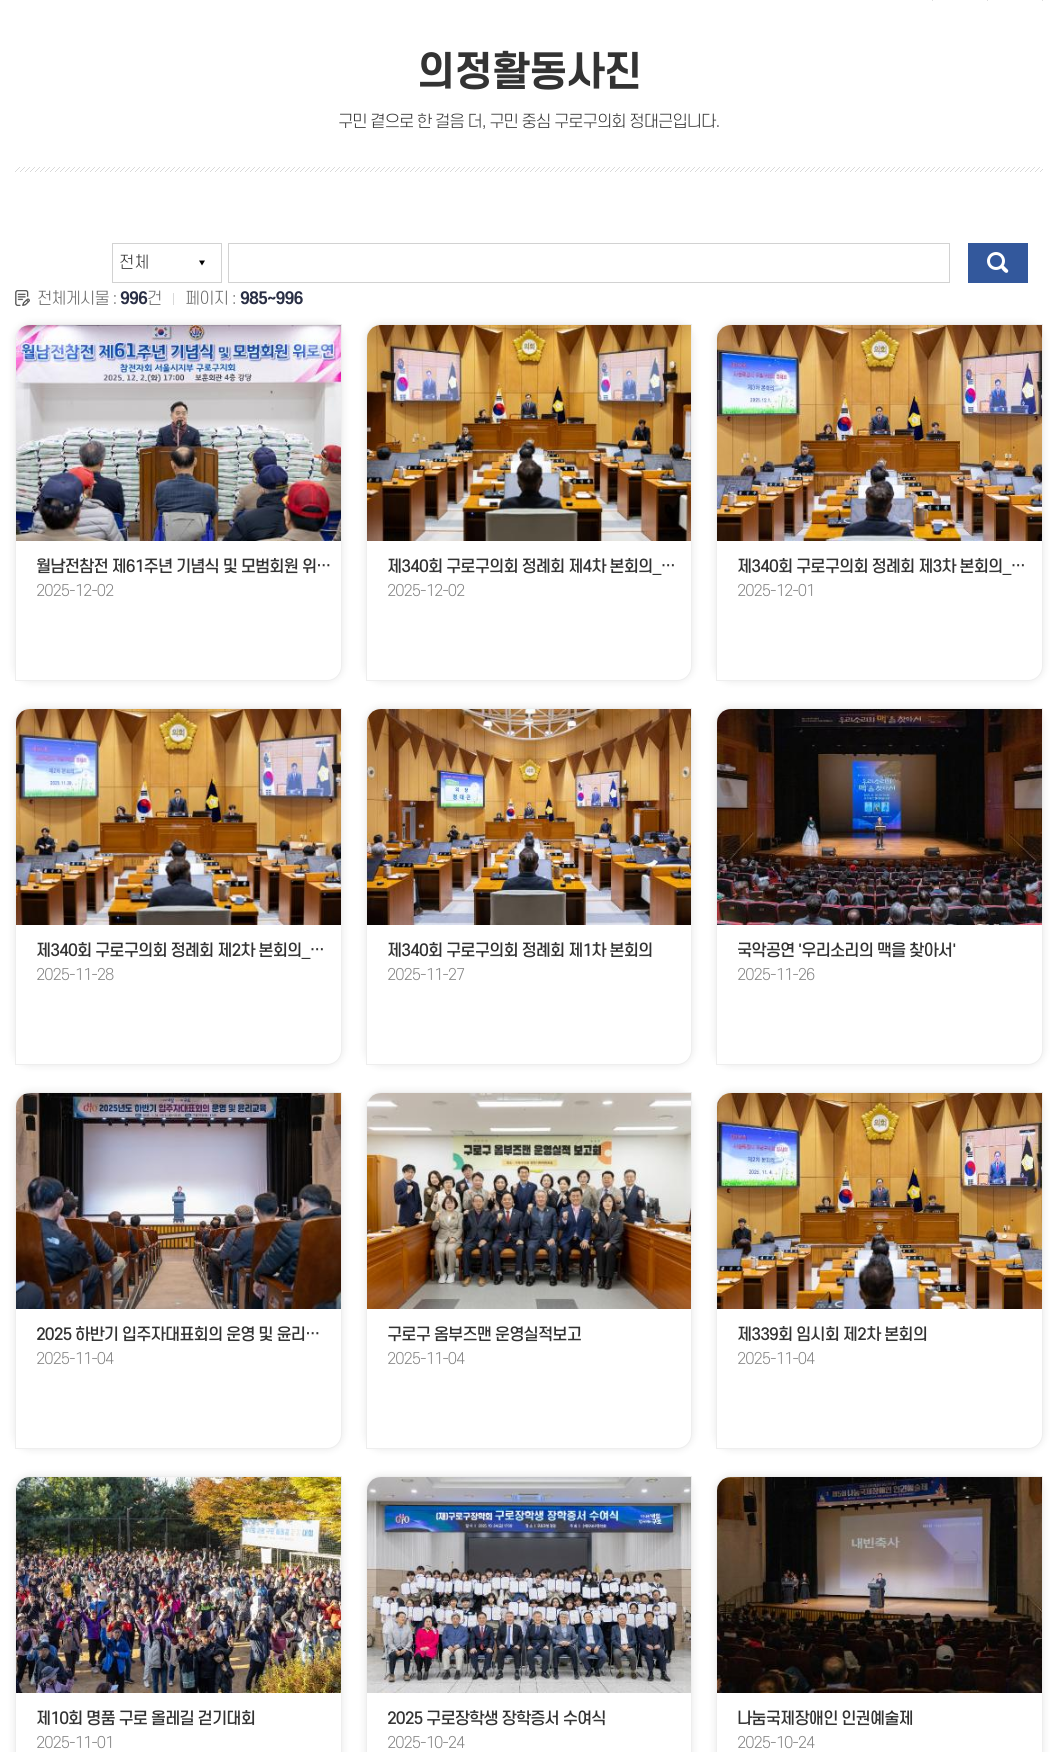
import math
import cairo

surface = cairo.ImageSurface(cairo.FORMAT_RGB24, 1058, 1752)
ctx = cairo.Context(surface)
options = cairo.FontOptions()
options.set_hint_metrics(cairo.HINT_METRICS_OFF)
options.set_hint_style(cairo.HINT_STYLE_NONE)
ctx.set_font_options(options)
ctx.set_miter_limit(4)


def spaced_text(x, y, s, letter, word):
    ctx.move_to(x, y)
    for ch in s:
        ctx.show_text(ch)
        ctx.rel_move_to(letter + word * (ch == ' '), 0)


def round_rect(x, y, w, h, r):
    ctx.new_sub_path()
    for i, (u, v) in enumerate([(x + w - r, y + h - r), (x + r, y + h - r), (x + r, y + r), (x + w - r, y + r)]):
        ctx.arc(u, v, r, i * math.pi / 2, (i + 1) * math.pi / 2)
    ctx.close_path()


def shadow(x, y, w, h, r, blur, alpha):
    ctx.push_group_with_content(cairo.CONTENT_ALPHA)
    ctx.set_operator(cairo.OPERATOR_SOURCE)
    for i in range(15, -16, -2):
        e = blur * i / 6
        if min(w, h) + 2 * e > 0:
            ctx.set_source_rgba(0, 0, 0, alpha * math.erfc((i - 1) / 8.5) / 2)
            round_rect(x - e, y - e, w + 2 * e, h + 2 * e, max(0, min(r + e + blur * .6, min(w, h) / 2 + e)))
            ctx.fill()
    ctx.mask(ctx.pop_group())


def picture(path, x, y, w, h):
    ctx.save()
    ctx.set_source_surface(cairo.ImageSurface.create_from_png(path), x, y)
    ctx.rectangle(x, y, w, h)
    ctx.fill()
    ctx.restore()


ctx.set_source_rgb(1, 1, 1)
ctx.paint()
ctx.set_source_rgb(0.867, 0.867, 0.867)
ctx.rectangle(1042, 0, 1, 1)
ctx.fill()
ctx.rectangle(932, 0, 1, 1)
ctx.fill()
ctx.rectangle(987, 0, 1, 1)
ctx.fill()
ctx.select_font_face("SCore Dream", cairo.FONT_SLANT_NORMAL, cairo.FONT_WEIGHT_BOLD)
ctx.set_font_size(40)
ctx.set_source_rgb(0.2, 0.2, 0.2)
spaced_text(417, 86, "의정활동사진", -1, 0)
ctx.select_font_face("SCore Dream Light")
ctx.set_font_size(16)
spaced_text(338, 127, "구민 곁으로 한 걸음 더, 구민 중심 구로구의회 정대근입니다.", -1, 0)
picture("img1.png", 15, 167, 1028, 5)
ctx.rectangle(112.5, 243.5, 109, 39)
ctx.set_source_rgb(0.824, 0.824, 0.824)
ctx.set_line_width(1)
ctx.stroke()
ctx.set_source_rgb(0.2, 0.2, 0.2)
ctx.move_to(119, 268)
ctx.show_text("전체")
ctx.set_source_rgb(0, 0, 0)
ctx.new_path()
ctx.move_to(199, 260.5)
ctx.line_to(205, 260.5)
ctx.line_to(202, 265.5)
ctx.close_path()
ctx.fill()
ctx.rectangle(228.5, 243.5, 721, 39)
ctx.set_source_rgb(0.824, 0.824, 0.824)
ctx.stroke()
ctx.set_source_rgb(0.2, 0.345, 0.612)
ctx.rectangle(968, 243, 60, 40)
ctx.fill()
ctx.arc(996, 261, 7.5, 0, 2 * math.pi)
ctx.set_source_rgb(1, 1, 1)
ctx.set_line_width(3)
ctx.stroke()
ctx.new_path()
ctx.move_to(1004, 266)
ctx.line_to(1008, 270)
ctx.curve_to(1008.5, 270.5, 1008, 271.5, 1008, 272)
ctx.curve_to(1006, 274.5, 1003.5, 271, 1002.5, 270)
ctx.line_to(1001, 268)
ctx.curve_to(1000, 266, 1002.5, 264.5, 1004, 266)
ctx.close_path()
ctx.fill()
picture("img2.png", 15, 290, 15, 16)
ctx.set_source_rgb(0.4, 0.4, 0.4)
spaced_text(37, 304, "전체게시물 :", -1, 0)
ctx.select_font_face("SCore Dream", cairo.FONT_SLANT_NORMAL, cairo.FONT_WEIGHT_BOLD)
ctx.set_source_rgb(0.161, 0.18, 0.267)
spaced_text(120, 304, "996", -1, 0)
ctx.select_font_face("SCore Dream Light")
ctx.set_source_rgb(0.4, 0.4, 0.4)
spaced_text(147, 304, "건", -1, 0)
ctx.set_source_rgb(0.851, 0.851, 0.851)
ctx.rectangle(173, 293, 1, 12)
ctx.fill()
ctx.set_source_rgb(0.4, 0.4, 0.4)
spaced_text(185, 304, "페이지 :", -1, 0)
ctx.select_font_face("SCore Dream", cairo.FONT_SLANT_NORMAL, cairo.FONT_WEIGHT_BOLD)
ctx.set_source_rgb(0.161, 0.18, 0.267)
spaced_text(240, 304, "985~996", -1, 0)
ctx.set_source_rgb(0, 0, 0)
shadow(15, 324, 327, 357, 15, 4, 0.1)
ctx.set_source_rgb(1, 1, 1)
ctx.new_path()
ctx.move_to(30, 324.5)
ctx.line_to(341.5, 324.5)
ctx.line_to(341.5, 666)
ctx.curve_to(341.5, 674, 335, 680.5, 327, 680.5)
ctx.line_to(15.5, 680.5)
ctx.line_to(15.5, 339)
ctx.curve_to(15.5, 331, 22, 324.5, 30, 324.5)
ctx.close_path()
ctx.fill_preserve()
ctx.set_source_rgb(0.933, 0.933, 0.933)
ctx.set_line_width(1)
ctx.stroke()
picture("img3.png", 16, 325, 325, 216)
ctx.select_font_face("SCore Dream Medium")
ctx.set_source_rgb(0.2, 0.2, 0.2)
spaced_text(36, 572, "월남전참전 제61주년 기념식 및 모범회원 위…", -1, 0)
ctx.select_font_face("SCore Dream Light")
ctx.set_font_size(15.25)
ctx.set_source_rgb(0.514, 0.514, 0.514)
spaced_text(36, 596, "2025-12-02", -1, 0)
ctx.set_source_rgb(0, 0, 0)
shadow(366, 324, 326, 357, 15, 4, 0.1)
ctx.set_source_rgb(1, 1, 1)
ctx.new_path()
ctx.move_to(381, 324.5)
ctx.line_to(691.5, 324.5)
ctx.line_to(691.5, 666)
ctx.curve_to(691.5, 674, 685, 680.5, 677, 680.5)
ctx.line_to(366.5, 680.5)
ctx.line_to(366.5, 339)
ctx.curve_to(366.5, 331, 373, 324.5, 381, 324.5)
ctx.close_path()
ctx.fill_preserve()
ctx.set_source_rgb(0.933, 0.933, 0.933)
ctx.stroke()
picture("img4.png", 367, 325, 324, 216)
ctx.select_font_face("SCore Dream Medium")
ctx.set_font_size(16)
ctx.set_source_rgb(0.2, 0.2, 0.2)
spaced_text(387, 572, "제340회 구로구의회 정례회 제4차 본회의_…", -1, 0)
ctx.select_font_face("SCore Dream Light")
ctx.set_font_size(15.25)
ctx.set_source_rgb(0.514, 0.514, 0.514)
spaced_text(387, 596, "2025-12-02", -1, 0)
ctx.set_source_rgb(0, 0, 0)
shadow(716, 324, 327, 357, 15, 4, 0.1)
ctx.set_source_rgb(1, 1, 1)
ctx.new_path()
ctx.move_to(731, 324.5)
ctx.line_to(1042.5, 324.5)
ctx.line_to(1042.5, 666)
ctx.curve_to(1042.5, 674, 1036, 680.5, 1028, 680.5)
ctx.line_to(716.5, 680.5)
ctx.line_to(716.5, 339)
ctx.curve_to(716.5, 331, 723, 324.5, 731, 324.5)
ctx.close_path()
ctx.fill_preserve()
ctx.set_source_rgb(0.933, 0.933, 0.933)
ctx.stroke()
picture("img5.png", 717, 325, 325, 216)
ctx.select_font_face("SCore Dream Medium")
ctx.set_font_size(16)
ctx.set_source_rgb(0.2, 0.2, 0.2)
spaced_text(737, 572, "제340회 구로구의회 정례회 제3차 본회의_…", -1, 0)
ctx.select_font_face("SCore Dream Light")
ctx.set_font_size(15.25)
ctx.set_source_rgb(0.514, 0.514, 0.514)
spaced_text(737, 596, "2025-12-01", -1, 0)
ctx.set_source_rgb(0, 0, 0)
shadow(15, 708, 327, 357, 15, 4, 0.1)
ctx.set_source_rgb(1, 1, 1)
ctx.new_path()
ctx.move_to(30, 708.5)
ctx.line_to(341.5, 708.5)
ctx.line_to(341.5, 1050)
ctx.curve_to(341.5, 1058, 335, 1064.5, 327, 1064.5)
ctx.line_to(15.5, 1064.5)
ctx.line_to(15.5, 723)
ctx.curve_to(15.5, 715, 22, 708.5, 30, 708.5)
ctx.close_path()
ctx.fill_preserve()
ctx.set_source_rgb(0.933, 0.933, 0.933)
ctx.stroke()
picture("img6.png", 16, 709, 325, 216)
ctx.select_font_face("SCore Dream Medium")
ctx.set_font_size(16)
ctx.set_source_rgb(0.2, 0.2, 0.2)
spaced_text(36, 956, "제340회 구로구의회 정례회 제2차 본회의_…", -1, 0)
ctx.select_font_face("SCore Dream Light")
ctx.set_font_size(15.25)
ctx.set_source_rgb(0.514, 0.514, 0.514)
spaced_text(36, 980, "2025-11-28", -1, 0)
ctx.set_source_rgb(0, 0, 0)
shadow(366, 708, 326, 357, 15, 4, 0.1)
ctx.set_source_rgb(1, 1, 1)
ctx.new_path()
ctx.move_to(381, 708.5)
ctx.line_to(691.5, 708.5)
ctx.line_to(691.5, 1050)
ctx.curve_to(691.5, 1058, 685, 1064.5, 677, 1064.5)
ctx.line_to(366.5, 1064.5)
ctx.line_to(366.5, 723)
ctx.curve_to(366.5, 715, 373, 708.5, 381, 708.5)
ctx.close_path()
ctx.fill_preserve()
ctx.set_source_rgb(0.933, 0.933, 0.933)
ctx.stroke()
picture("img7.png", 367, 709, 324, 216)
ctx.select_font_face("SCore Dream Medium")
ctx.set_font_size(16)
ctx.set_source_rgb(0.2, 0.2, 0.2)
spaced_text(387, 956, "제340회 구로구의회 정례회 제1차 본회의", -1, 0)
ctx.select_font_face("SCore Dream Light")
ctx.set_font_size(15.25)
ctx.set_source_rgb(0.514, 0.514, 0.514)
spaced_text(387, 980, "2025-11-27", -1, 0)
ctx.set_source_rgb(0, 0, 0)
shadow(716, 708, 327, 357, 15, 4, 0.1)
ctx.set_source_rgb(1, 1, 1)
ctx.new_path()
ctx.move_to(731, 708.5)
ctx.line_to(1042.5, 708.5)
ctx.line_to(1042.5, 1050)
ctx.curve_to(1042.5, 1058, 1036, 1064.5, 1028, 1064.5)
ctx.line_to(716.5, 1064.5)
ctx.line_to(716.5, 723)
ctx.curve_to(716.5, 715, 723, 708.5, 731, 708.5)
ctx.close_path()
ctx.fill_preserve()
ctx.set_source_rgb(0.933, 0.933, 0.933)
ctx.stroke()
picture("img8.png", 717, 709, 325, 216)
ctx.select_font_face("SCore Dream Medium")
ctx.set_font_size(16)
ctx.set_source_rgb(0.2, 0.2, 0.2)
spaced_text(737, 956, "국악공연 '우리소리의 맥을 찾아서'", -1, 0)
ctx.select_font_face("SCore Dream Light")
ctx.set_font_size(15.25)
ctx.set_source_rgb(0.514, 0.514, 0.514)
spaced_text(737, 980, "2025-11-26", -1, 0)
ctx.set_source_rgb(0, 0, 0)
shadow(15, 1092, 327, 357, 15, 4, 0.1)
ctx.set_source_rgb(1, 1, 1)
ctx.new_path()
ctx.move_to(30, 1092.5)
ctx.line_to(341.5, 1092.5)
ctx.line_to(341.5, 1434)
ctx.curve_to(341.5, 1442, 335, 1448.5, 327, 1448.5)
ctx.line_to(15.5, 1448.5)
ctx.line_to(15.5, 1107)
ctx.curve_to(15.5, 1099, 22, 1092.5, 30, 1092.5)
ctx.close_path()
ctx.fill_preserve()
ctx.set_source_rgb(0.933, 0.933, 0.933)
ctx.stroke()
picture("img9.png", 16, 1093, 325, 216)
ctx.select_font_face("SCore Dream Medium")
ctx.set_font_size(16)
ctx.set_source_rgb(0.2, 0.2, 0.2)
spaced_text(36, 1340, "2025 하반기 입주자대표회의 운영 및 윤리…", -1, 0)
ctx.select_font_face("SCore Dream Light")
ctx.set_font_size(15.25)
ctx.set_source_rgb(0.514, 0.514, 0.514)
spaced_text(36, 1364, "2025-11-04", -1, 0)
ctx.set_source_rgb(0, 0, 0)
shadow(366, 1092, 326, 357, 15, 4, 0.1)
ctx.set_source_rgb(1, 1, 1)
ctx.new_path()
ctx.move_to(381, 1092.5)
ctx.line_to(691.5, 1092.5)
ctx.line_to(691.5, 1434)
ctx.curve_to(691.5, 1442, 685, 1448.5, 677, 1448.5)
ctx.line_to(366.5, 1448.5)
ctx.line_to(366.5, 1107)
ctx.curve_to(366.5, 1099, 373, 1092.5, 381, 1092.5)
ctx.close_path()
ctx.fill_preserve()
ctx.set_source_rgb(0.933, 0.933, 0.933)
ctx.stroke()
picture("img10.png", 367, 1093, 324, 216)
ctx.select_font_face("SCore Dream Medium")
ctx.set_font_size(16)
ctx.set_source_rgb(0.2, 0.2, 0.2)
spaced_text(387, 1340, "구로구 옴부즈맨 운영실적보고", -1, 0)
ctx.select_font_face("SCore Dream Light")
ctx.set_font_size(15.25)
ctx.set_source_rgb(0.514, 0.514, 0.514)
spaced_text(387, 1364, "2025-11-04", -1, 0)
ctx.set_source_rgb(0, 0, 0)
shadow(716, 1092, 327, 357, 15, 4, 0.1)
ctx.set_source_rgb(1, 1, 1)
ctx.new_path()
ctx.move_to(731, 1092.5)
ctx.line_to(1042.5, 1092.5)
ctx.line_to(1042.5, 1434)
ctx.curve_to(1042.5, 1442, 1036, 1448.5, 1028, 1448.5)
ctx.line_to(716.5, 1448.5)
ctx.line_to(716.5, 1107)
ctx.curve_to(716.5, 1099, 723, 1092.5, 731, 1092.5)
ctx.close_path()
ctx.fill_preserve()
ctx.set_source_rgb(0.933, 0.933, 0.933)
ctx.stroke()
picture("img11.png", 717, 1093, 325, 216)
ctx.select_font_face("SCore Dream Medium")
ctx.set_font_size(16)
ctx.set_source_rgb(0.2, 0.2, 0.2)
spaced_text(737, 1340, "제339회 임시회 제2차 본회의", -1, 0)
ctx.select_font_face("SCore Dream Light")
ctx.set_font_size(15.25)
ctx.set_source_rgb(0.514, 0.514, 0.514)
spaced_text(737, 1364, "2025-11-04", -1, 0)
ctx.set_source_rgb(0, 0, 0)
shadow(15, 1476, 327, 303, 15, 4, 0.1)
ctx.set_source_rgb(1, 1, 1)
ctx.new_path()
ctx.move_to(30, 1476.5)
ctx.line_to(341.5, 1476.5)
ctx.line_to(341.5, 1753)
ctx.curve_to(341.5, 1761, 335, 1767.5, 327, 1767.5)
ctx.line_to(15.5, 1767.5)
ctx.line_to(15.5, 1491)
ctx.curve_to(15.5, 1483, 22, 1476.5, 30, 1476.5)
ctx.close_path()
ctx.fill_preserve()
ctx.set_source_rgb(0.933, 0.933, 0.933)
ctx.stroke()
picture("img12.png", 16, 1477, 325, 216)
ctx.select_font_face("SCore Dream Medium")
ctx.set_font_size(16)
ctx.set_source_rgb(0.2, 0.2, 0.2)
spaced_text(36, 1724, "제10회 명품 구로 올레길 걷기대회", -1, 0)
ctx.select_font_face("SCore Dream Light")
ctx.set_font_size(15.25)
ctx.set_source_rgb(0.514, 0.514, 0.514)
spaced_text(36, 1748, "2025-11-01", -1, 0)
ctx.set_source_rgb(0, 0, 0)
shadow(366, 1476, 326, 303, 15, 4, 0.1)
ctx.set_source_rgb(1, 1, 1)
ctx.new_path()
ctx.move_to(381, 1476.5)
ctx.line_to(691.5, 1476.5)
ctx.line_to(691.5, 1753)
ctx.curve_to(691.5, 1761, 685, 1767.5, 677, 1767.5)
ctx.line_to(366.5, 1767.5)
ctx.line_to(366.5, 1491)
ctx.curve_to(366.5, 1483, 373, 1476.5, 381, 1476.5)
ctx.close_path()
ctx.fill_preserve()
ctx.set_source_rgb(0.933, 0.933, 0.933)
ctx.stroke()
picture("img13.png", 367, 1477, 324, 216)
ctx.select_font_face("SCore Dream Medium")
ctx.set_font_size(16)
ctx.set_source_rgb(0.2, 0.2, 0.2)
spaced_text(387, 1724, "2025 구로장학생 장학증서 수여식", -1, 0)
ctx.select_font_face("SCore Dream Light")
ctx.set_font_size(15.25)
ctx.set_source_rgb(0.514, 0.514, 0.514)
spaced_text(387, 1748, "2025-10-24", -1, 0)
ctx.set_source_rgb(0, 0, 0)
shadow(716, 1476, 327, 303, 15, 4, 0.1)
ctx.set_source_rgb(1, 1, 1)
ctx.new_path()
ctx.move_to(731, 1476.5)
ctx.line_to(1042.5, 1476.5)
ctx.line_to(1042.5, 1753)
ctx.curve_to(1042.5, 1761, 1036, 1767.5, 1028, 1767.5)
ctx.line_to(716.5, 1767.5)
ctx.line_to(716.5, 1491)
ctx.curve_to(716.5, 1483, 723, 1476.5, 731, 1476.5)
ctx.close_path()
ctx.fill_preserve()
ctx.set_source_rgb(0.933, 0.933, 0.933)
ctx.stroke()
picture("img14.png", 717, 1477, 325, 216)
ctx.select_font_face("SCore Dream Medium")
ctx.set_font_size(16)
ctx.set_source_rgb(0.2, 0.2, 0.2)
spaced_text(737, 1724, "나눔국제장애인 인권예술제", -1, 0)
ctx.select_font_face("SCore Dream Light")
ctx.set_font_size(15.25)
ctx.set_source_rgb(0.514, 0.514, 0.514)
spaced_text(737, 1748, "2025-10-24", -1, 0)
surface.write_to_png("page.png")
